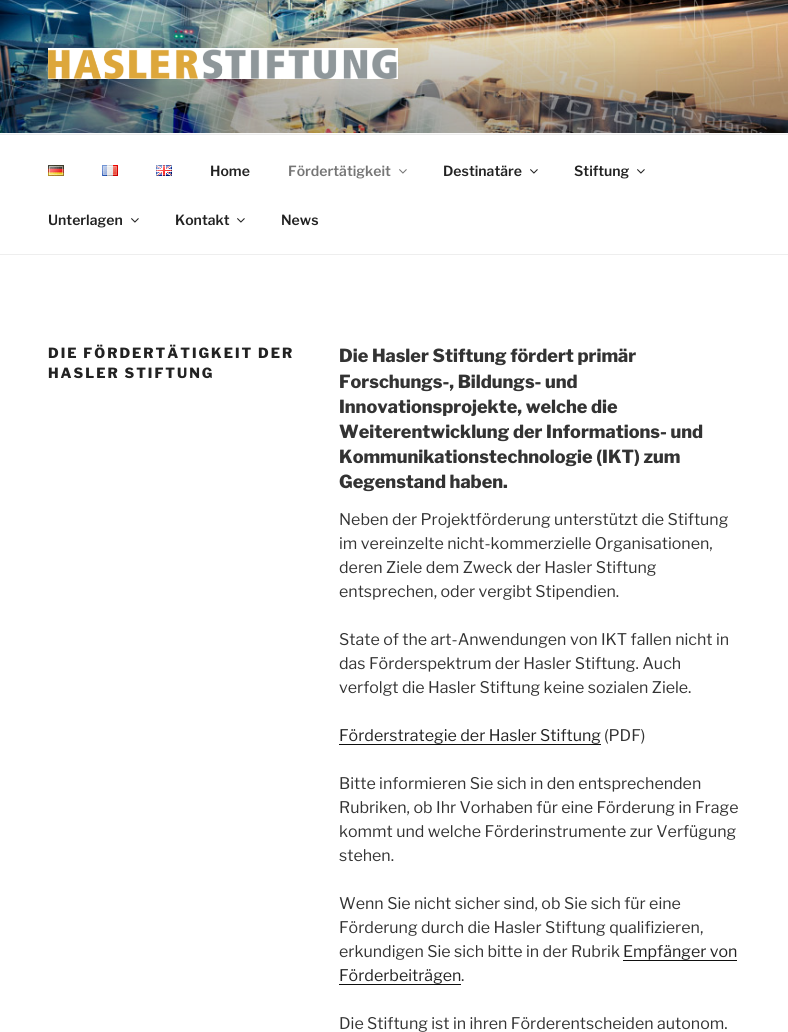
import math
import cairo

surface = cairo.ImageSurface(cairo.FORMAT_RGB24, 788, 1032)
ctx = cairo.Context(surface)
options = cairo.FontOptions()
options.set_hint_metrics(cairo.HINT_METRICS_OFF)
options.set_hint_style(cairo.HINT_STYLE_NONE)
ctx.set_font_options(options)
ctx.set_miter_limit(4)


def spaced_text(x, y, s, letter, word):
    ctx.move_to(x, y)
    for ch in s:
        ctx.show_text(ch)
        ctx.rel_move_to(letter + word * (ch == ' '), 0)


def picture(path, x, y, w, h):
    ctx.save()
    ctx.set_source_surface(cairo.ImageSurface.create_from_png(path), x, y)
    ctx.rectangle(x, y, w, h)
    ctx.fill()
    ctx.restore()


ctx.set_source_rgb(1, 1, 1)
ctx.paint()
ctx.set_source_rgb(0.98, 0.98, 0.98)
ctx.rectangle(0, 133, 788, 1)
ctx.fill()
picture("img1.png", 0, 0, 788, 133)
picture("img2.png", 48, 48, 350, 31)
ctx.set_source_rgb(0.933, 0.933, 0.933)
ctx.rectangle(0, 134, 788, 1)
ctx.fill()
ctx.rectangle(0, 254, 788, 1)
ctx.fill()
picture("img3.png", 48, 165, 16, 11)
picture("img4.png", 102, 165, 16, 11)
picture("img5.png", 156, 165, 16, 11)
ctx.select_font_face("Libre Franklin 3 Thin")
ctx.set_font_size(14)
ctx.set_source_rgb(0.133, 0.133, 0.133)
ctx.move_to(210, 176)
ctx.show_text("Home")
ctx.set_source_rgb(0.463, 0.463, 0.463)
ctx.move_to(288, 176)
ctx.show_text("Fördertätigkeit")
picture("img6.png", 399, 169, 8, 5)
ctx.set_source_rgb(0.133, 0.133, 0.133)
ctx.move_to(443, 176)
ctx.show_text("Destinatäre")
picture("img7.png", 530, 169, 8, 5)
ctx.move_to(574, 176)
ctx.show_text("Stiftung")
picture("img7.png", 637, 169, 8, 5)
ctx.move_to(48, 225)
ctx.show_text("Unterlagen")
picture("img7.png", 131, 218, 8, 5)
ctx.move_to(175, 225)
ctx.show_text("Kontakt")
picture("img7.png", 237, 218, 8, 5)
ctx.move_to(281, 225)
ctx.show_text("News")
ctx.select_font_face("Libre Franklin Thin")
spaced_text(48, 358, "DIE FÖRDERTÄTIGKEIT DER", 2, 0)
spaced_text(48, 378, "HASLER STIFTUNG", 2, 0)
ctx.set_font_size(18)
ctx.set_source_rgb(0.2, 0.2, 0.2)
ctx.move_to(339, 362)
ctx.show_text("Die Hasler Stiftung fördert primär")
ctx.move_to(339, 388)
ctx.show_text("Forschungs-, Bildungs- und")
ctx.move_to(339, 413)
ctx.show_text("Innovationsprojekte, welche die")
ctx.move_to(339, 438)
ctx.show_text("Weiterentwicklung der Informations- und")
ctx.move_to(339, 463)
ctx.show_text("Kommunikationstechnologie (IKT) zum")
ctx.move_to(339, 488)
ctx.show_text("Gegenstand haben.")
ctx.select_font_face("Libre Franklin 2 Thin")
ctx.set_font_size(16)
ctx.move_to(339, 525)
ctx.show_text("Neben der Projektförderung unterstützt die Stiftung")
ctx.move_to(339, 549)
ctx.show_text("im vereinzelte nicht-kommerzielle Organisationen,")
ctx.move_to(339, 573)
ctx.show_text("deren Ziele dem Zweck der Hasler Stiftung")
ctx.move_to(339, 597)
ctx.show_text("entsprechen, oder vergibt Stipendien.")
ctx.move_to(339, 645)
ctx.show_text("State of the art-Anwendungen von IKT fallen nicht in")
ctx.move_to(339, 669)
ctx.show_text("das Förderspektrum der Hasler Stiftung. Auch")
ctx.move_to(339, 693)
ctx.show_text("verfolgt die Hasler Stiftung keine sozialen Ziele.")
ctx.set_source_rgb(0.133, 0.133, 0.133)
ctx.move_to(339, 741)
ctx.show_text("Förderstrategie der Hasler Stiftung")
ctx.set_source_rgb(0.059, 0.059, 0.059)
ctx.rectangle(339, 744, 262, 1)
ctx.fill()
ctx.set_source_rgb(0.2, 0.2, 0.2)
ctx.move_to(604, 741)
ctx.show_text("(PDF)")
ctx.move_to(339, 789)
ctx.show_text("Bitte informieren Sie sich in den entsprechenden")
ctx.move_to(339, 813)
ctx.show_text("Rubriken, ob Ihr Vorhaben für eine Förderung in Frage")
ctx.move_to(339, 837)
ctx.show_text("kommt und welche Förderinstrumente zur Verfügung")
ctx.move_to(339, 861)
ctx.show_text("stehen.")
ctx.move_to(339, 909)
ctx.show_text("Wenn Sie nicht sicher sind, ob Sie sich für eine")
ctx.move_to(339, 933)
ctx.show_text("Förderung durch die Hasler Stiftung qualifizieren,")
ctx.move_to(339, 957)
ctx.show_text("erkundigen Sie sich bitte in der Rubrik")
ctx.set_source_rgb(0.133, 0.133, 0.133)
ctx.move_to(623, 957)
ctx.show_text("Empfänger von")
ctx.set_source_rgb(0.059, 0.059, 0.059)
ctx.rectangle(623, 960, 114, 1)
ctx.fill()
ctx.set_source_rgb(0.133, 0.133, 0.133)
ctx.move_to(339, 981)
ctx.show_text("Förderbeiträgen")
ctx.set_source_rgb(0.059, 0.059, 0.059)
ctx.rectangle(339, 984, 122, 1)
ctx.fill()
ctx.set_source_rgb(0.2, 0.2, 0.2)
ctx.move_to(461, 981)
ctx.show_text(".")
ctx.move_to(339, 1029)
ctx.show_text("Die Stiftung ist in ihren Förderentscheiden autonom.")
surface.write_to_png("page.png")
